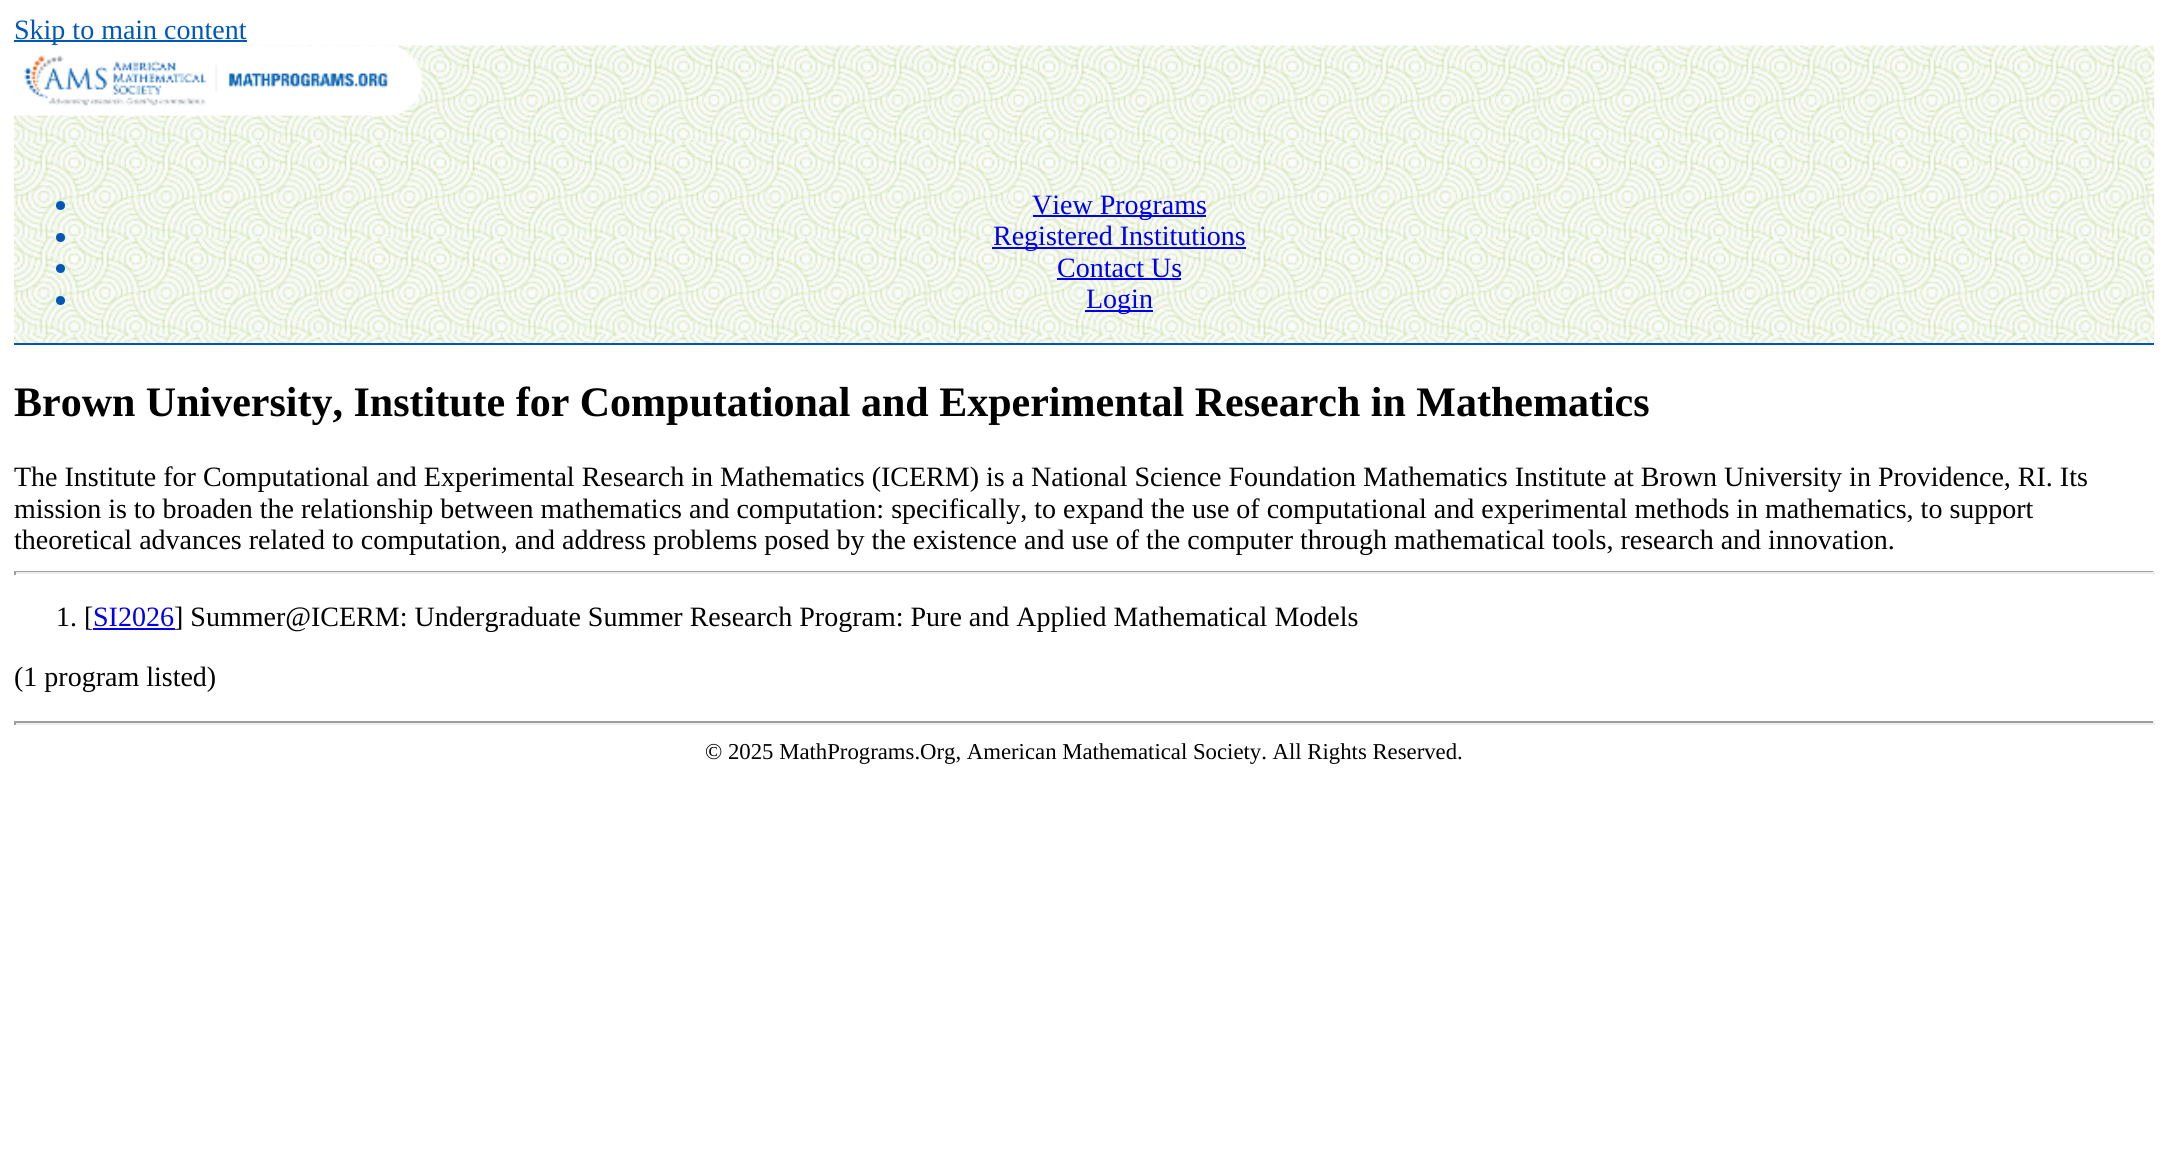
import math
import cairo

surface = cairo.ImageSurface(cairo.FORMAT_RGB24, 2167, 1157)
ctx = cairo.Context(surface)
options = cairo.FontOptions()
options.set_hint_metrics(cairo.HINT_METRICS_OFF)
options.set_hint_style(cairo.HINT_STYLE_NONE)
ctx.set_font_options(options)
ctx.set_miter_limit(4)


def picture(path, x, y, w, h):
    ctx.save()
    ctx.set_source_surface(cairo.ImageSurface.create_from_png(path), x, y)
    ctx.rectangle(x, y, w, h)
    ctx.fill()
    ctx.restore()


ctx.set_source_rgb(1, 1, 1)
ctx.paint()
ctx.set_source_rgb(0, 0.341, 0.722)
ctx.rectangle(14, 40, 233, 2)
ctx.fill()
ctx.select_font_face("Liberation Serif")
ctx.set_font_size(28)
ctx.move_to(14, 39)
ctx.show_text("Skip to main content")
picture("img1.png", 14, 45, 2141, 300)
picture("img2.png", 14, 45, 408, 71)
ctx.arc(60.5, 205.5, 4.5, 0, 2 * math.pi)
ctx.fill()
ctx.set_source_rgb(0, 0, 0.933)
ctx.rectangle(1033, 215, 173, 2)
ctx.fill()
ctx.move_to(1032, 214)
ctx.show_text("View Programs")
ctx.set_source_rgb(0, 0.341, 0.722)
ctx.new_path()
ctx.arc(60.5, 237.5, 4.5, 0, 2 * math.pi)
ctx.fill()
ctx.set_source_rgb(0, 0, 0.933)
ctx.rectangle(992, 247, 254, 2)
ctx.fill()
ctx.move_to(993, 245)
ctx.show_text("Registered Institutions")
ctx.set_source_rgb(0, 0.341, 0.722)
ctx.new_path()
ctx.arc(60.5, 268.5, 4.5, 0, 2 * math.pi)
ctx.fill()
ctx.set_source_rgb(0, 0, 0.933)
ctx.move_to(1057, 277)
ctx.show_text("Contact Us")
ctx.rectangle(1057, 278, 124, 2)
ctx.fill()
ctx.set_source_rgb(0, 0.341, 0.722)
ctx.arc(60.5, 300.5, 4.5, 0, 2 * math.pi)
ctx.fill()
ctx.set_source_rgb(0, 0, 0.933)
ctx.rectangle(1085, 310, 68, 2)
ctx.fill()
ctx.move_to(1086, 308)
ctx.show_text("Login")
ctx.set_source_rgb(0, 0.341, 0.722)
ctx.rectangle(14, 343, 2140, 2)
ctx.fill()
ctx.select_font_face("Liberation Serif", cairo.FONT_SLANT_NORMAL, cairo.FONT_WEIGHT_BOLD)
ctx.set_font_size(42)
ctx.set_source_rgb(0, 0, 0)
ctx.move_to(14, 416)
ctx.show_text("Brown University, Institute for Computational and Experimental Research in Mathematics")
ctx.select_font_face("Liberation Serif")
ctx.set_font_size(28)
ctx.move_to(14, 486)
ctx.show_text("The Institute for Computational and Experimental Research in Mathematics (ICERM) is a National Science Foundation Mathematics Institute at Brown University in Providence, RI. Its")
ctx.move_to(14, 518)
ctx.show_text("mission is to broaden the relationship between mathematics and computation: specifically, to expand the use of computational and experimental methods in mathematics, to support")
ctx.move_to(14, 549)
ctx.show_text("theoretical advances related to computation, and address problems posed by the existence and use of the computer through mathematical tools, research and innovation.")
ctx.set_source_rgb(0.624, 0.624, 0.624)
ctx.rectangle(14, 571, 2140, 1)
ctx.fill()
ctx.set_source_rgb(0.933, 0.933, 0.933)
ctx.rectangle(2153, 571, 2, 4)
ctx.fill()
ctx.rectangle(14, 572, 2140, 2)
ctx.fill()
ctx.set_source_rgb(0.624, 0.624, 0.624)
ctx.rectangle(14, 571, 2, 4)
ctx.fill()
ctx.set_source_rgb(0, 0, 0)
ctx.move_to(56, 626)
ctx.show_text("1. [")
ctx.set_source_rgb(0, 0, 0.933)
ctx.move_to(93, 626)
ctx.show_text("SI2026")
ctx.rectangle(93, 628, 82, 2)
ctx.fill()
ctx.set_source_rgb(0, 0, 0)
ctx.move_to(174, 626)
ctx.show_text("] Summer@ICERM: Undergraduate Summer Research Program: Pure and Applied Mathematical Models")
ctx.move_to(14, 686)
ctx.show_text("(1 program listed)")
ctx.set_source_rgb(0.624, 0.624, 0.624)
ctx.rectangle(14, 721, 2140, 2)
ctx.fill()
ctx.set_source_rgb(0.933, 0.933, 0.933)
ctx.rectangle(2153, 721, 2, 4)
ctx.fill()
ctx.rectangle(14, 723, 2140, 2)
ctx.fill()
ctx.set_source_rgb(0.624, 0.624, 0.624)
ctx.rectangle(14, 721, 2, 4)
ctx.fill()
ctx.set_font_size(22.75)
ctx.set_source_rgb(0, 0, 0)
ctx.move_to(705, 759)
ctx.show_text("© 2025 MathPrograms.Org, American Mathematical Society. All Rights Reserved.")
surface.write_to_png("page.png")
